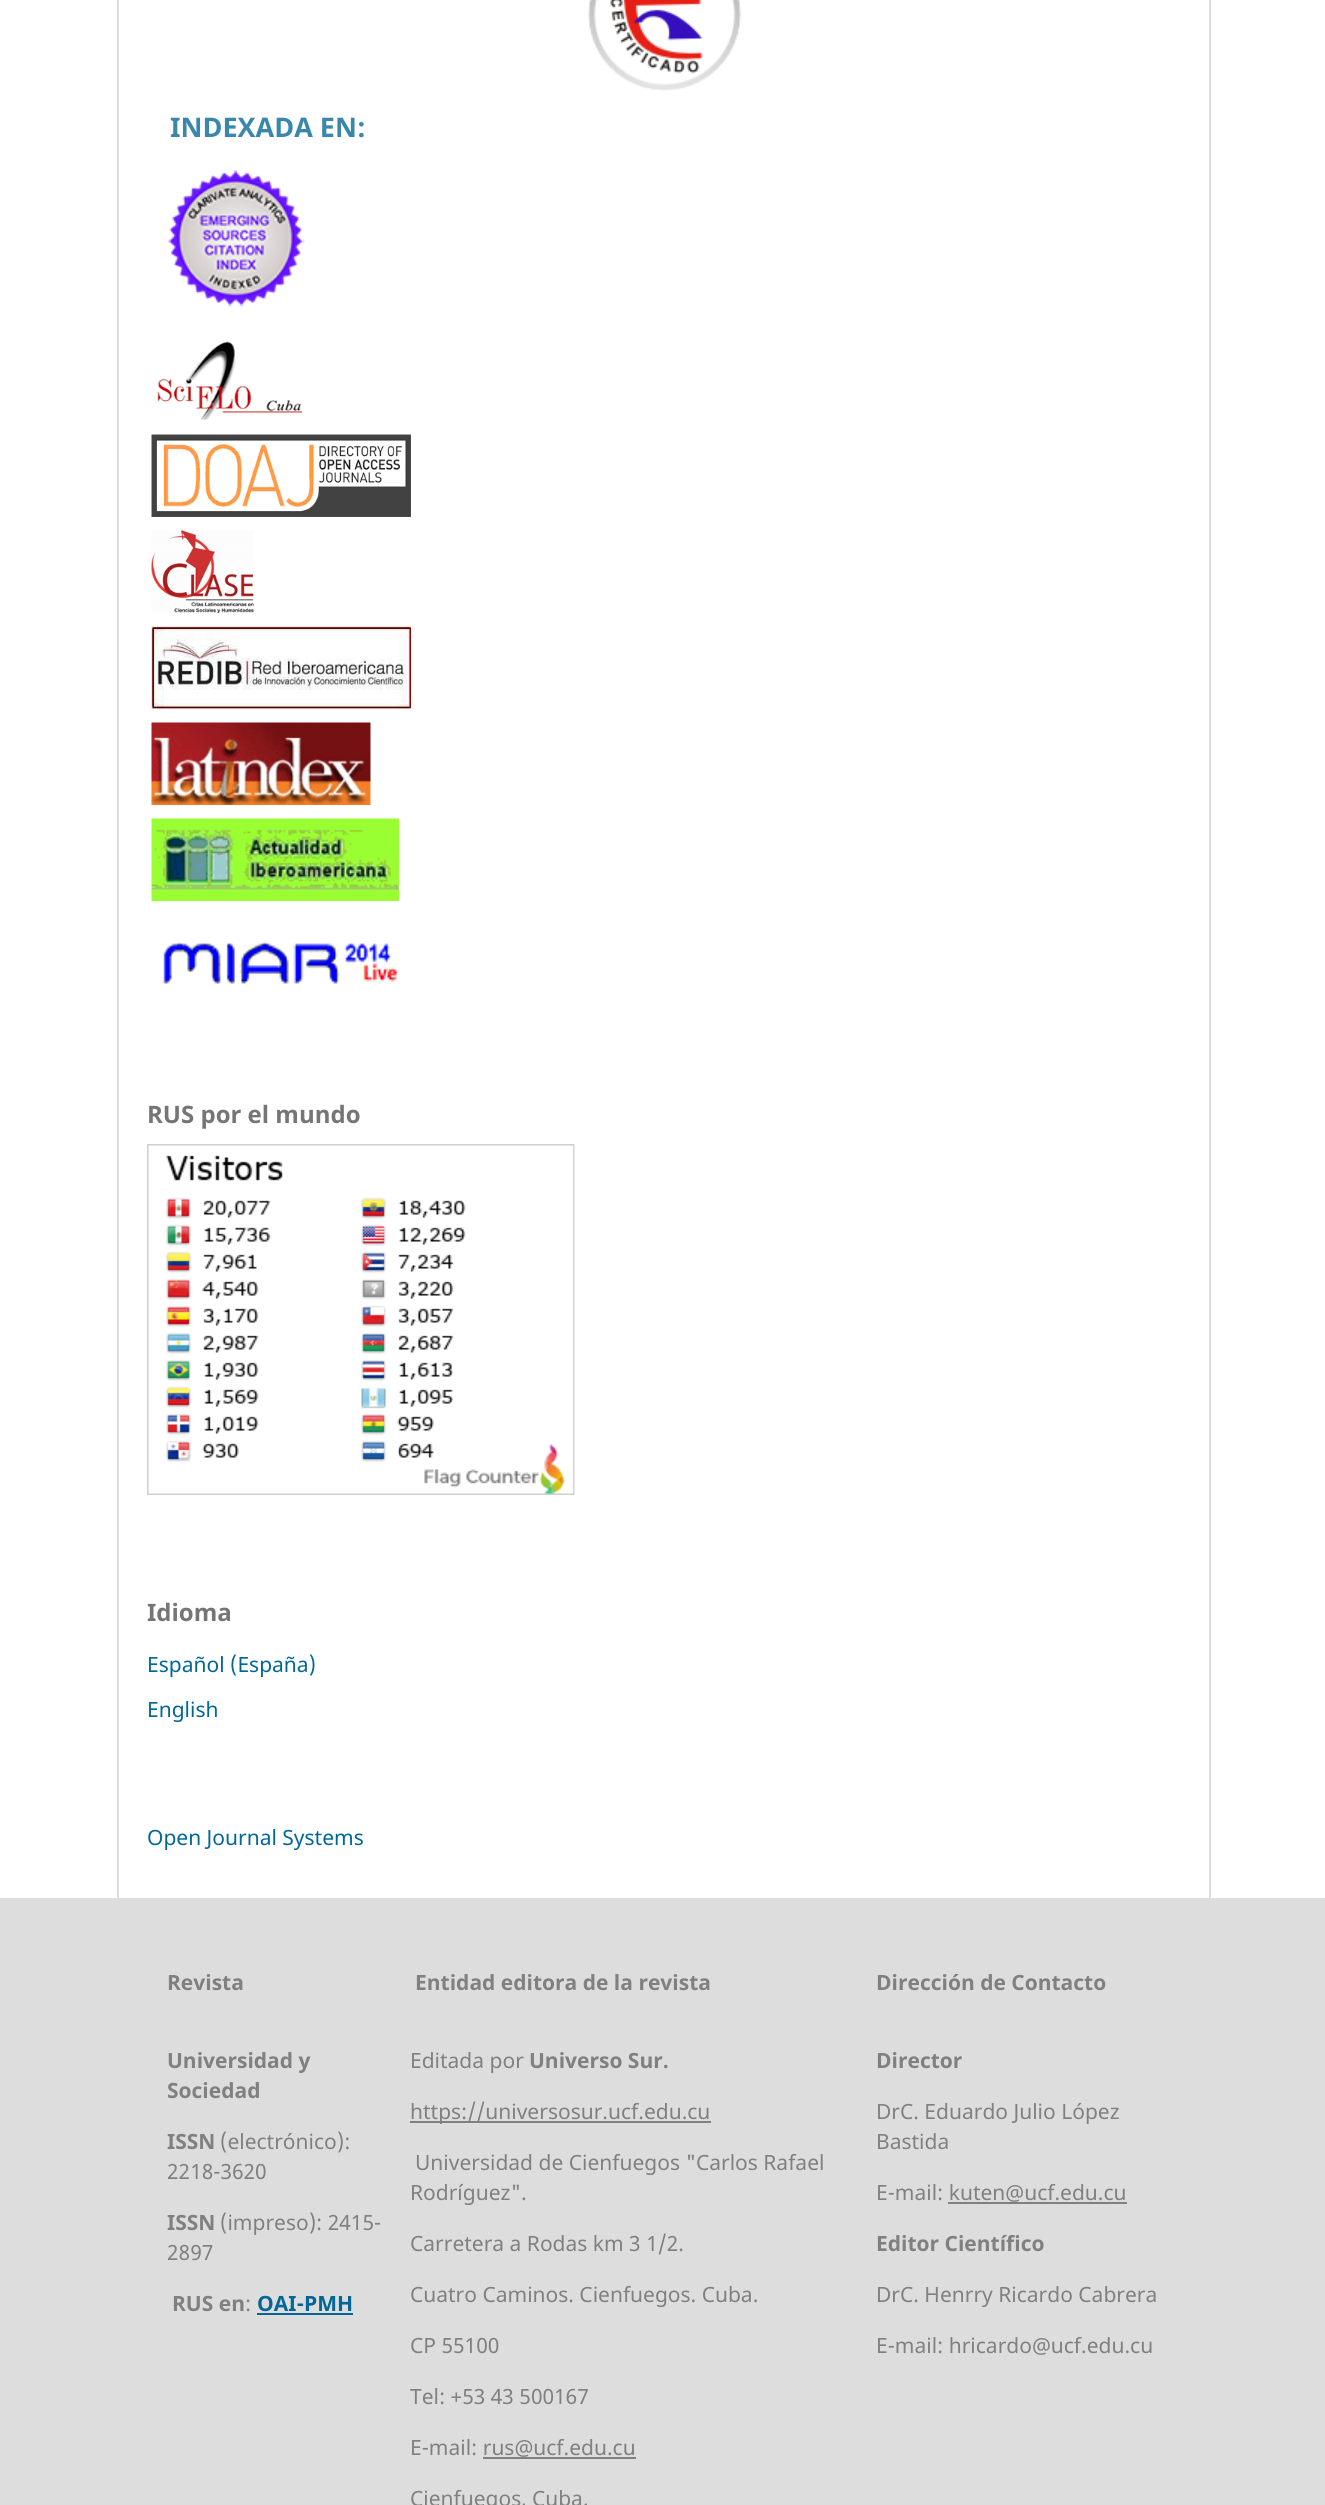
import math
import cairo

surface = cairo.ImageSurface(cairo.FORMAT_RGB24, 1325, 2505)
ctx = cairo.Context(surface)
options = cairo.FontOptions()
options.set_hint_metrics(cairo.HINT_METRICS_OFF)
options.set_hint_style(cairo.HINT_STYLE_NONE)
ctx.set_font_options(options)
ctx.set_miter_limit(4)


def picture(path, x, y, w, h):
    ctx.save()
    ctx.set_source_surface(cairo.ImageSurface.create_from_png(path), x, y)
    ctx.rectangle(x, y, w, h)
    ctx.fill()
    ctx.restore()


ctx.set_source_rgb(1, 1, 1)
ctx.paint()
ctx.set_source_rgb(0.867, 0.867, 0.867)
ctx.rectangle(117, 0, 2, 1898)
ctx.fill()
ctx.rectangle(1209, 0, 2, 1898)
ctx.fill()
picture("img1.png", 588, 0, 154, 91)
ctx.select_font_face("Noto Sans", cairo.FONT_SLANT_NORMAL, cairo.FONT_WEIGHT_BOLD)
ctx.set_font_size(27)
ctx.set_source_rgb(0.227, 0.529, 0.678)
ctx.move_to(170, 137)
ctx.show_text("INDEXADA EN:")
picture("img2.png", 167, 170, 138, 138)
picture("img3.png", 157, 341, 146, 79)
picture("img4.png", 151, 434, 260, 83)
picture("img5.png", 151, 530, 103, 83)
picture("img6.png", 151, 626, 260, 83)
picture("img7.png", 151, 722, 220, 83)
picture("img8.png", 151, 818, 248, 83)
picture("img9.png", 162, 941, 235, 43)
ctx.set_font_size(24)
ctx.set_source_rgb(0.459, 0.459, 0.459)
ctx.move_to(147, 1123)
ctx.show_text("RUS por el mundo")
picture("img10.png", 147, 1144, 428, 351)
ctx.move_to(147, 1621)
ctx.show_text("Idioma")
ctx.select_font_face("Noto Sans")
ctx.set_font_size(21)
ctx.set_source_rgb(0, 0.404, 0.596)
ctx.move_to(147, 1672)
ctx.show_text("Español (España)")
ctx.move_to(147, 1717)
ctx.show_text("English")
ctx.move_to(147, 1845)
ctx.show_text("Open Journal Systems")
ctx.set_source_rgb(0.867, 0.867, 0.867)
ctx.rectangle(0, 1898, 1325, 607)
ctx.fill()
ctx.select_font_face("Noto Sans", cairo.FONT_SLANT_NORMAL, cairo.FONT_WEIGHT_BOLD)
ctx.set_source_rgb(0.502, 0.502, 0.502)
ctx.move_to(167, 1990)
ctx.show_text("Revista")
ctx.move_to(415, 1990)
ctx.show_text("Entidad editora de la revista")
ctx.move_to(876, 1990)
ctx.show_text("Dirección de Contacto")
ctx.move_to(167, 2068)
ctx.show_text("Universidad y")
ctx.move_to(167, 2098)
ctx.show_text("Sociedad")
ctx.move_to(167, 2149)
ctx.show_text("ISSN")
ctx.select_font_face("Noto Sans")
ctx.move_to(220, 2149)
ctx.show_text("(electrónico):")
ctx.move_to(167, 2179)
ctx.show_text("2218-3620")
ctx.select_font_face("Noto Sans", cairo.FONT_SLANT_NORMAL, cairo.FONT_WEIGHT_BOLD)
ctx.move_to(167, 2230)
ctx.show_text("ISSN")
ctx.select_font_face("Noto Sans")
ctx.move_to(220, 2230)
ctx.show_text("(impreso): 2415-")
ctx.move_to(167, 2260)
ctx.show_text("2897")
ctx.select_font_face("Noto Sans", cairo.FONT_SLANT_NORMAL, cairo.FONT_WEIGHT_BOLD)
ctx.move_to(172, 2311)
ctx.show_text("RUS en")
ctx.select_font_face("Noto Sans")
ctx.move_to(245, 2311)
ctx.show_text(":")
ctx.select_font_face("Noto Sans", cairo.FONT_SLANT_NORMAL, cairo.FONT_WEIGHT_BOLD)
ctx.set_source_rgb(0, 0.404, 0.596)
ctx.move_to(257, 2311)
ctx.show_text("OAI-PMH")
ctx.rectangle(257, 2313, 96, 2)
ctx.fill()
ctx.select_font_face("Noto Sans")
ctx.set_source_rgb(0.502, 0.502, 0.502)
ctx.move_to(410, 2068)
ctx.show_text("Editada por")
ctx.select_font_face("Noto Sans", cairo.FONT_SLANT_NORMAL, cairo.FONT_WEIGHT_BOLD)
ctx.move_to(529, 2068)
ctx.show_text("Universo Sur.")
ctx.rectangle(410, 2121, 301, 2)
ctx.fill()
ctx.select_font_face("Noto Sans")
ctx.move_to(410, 2119)
ctx.show_text("https://universosur.ucf.edu.cu")
ctx.move_to(415, 2170)
ctx.show_text("Universidad de Cienfuegos \"Carlos Rafael")
ctx.move_to(410, 2200)
ctx.show_text("Rodríguez\".")
ctx.move_to(410, 2251)
ctx.show_text("Carretera a Rodas km 3 1/2.")
ctx.move_to(410, 2302)
ctx.show_text("Cuatro Caminos. Cienfuegos. Cuba.")
ctx.move_to(410, 2353)
ctx.show_text("CP 55100")
ctx.move_to(410, 2404)
ctx.show_text("Tel: +53 43 500167")
ctx.move_to(410, 2455)
ctx.show_text("E-mail: rus@ucf.edu.cu")
ctx.rectangle(483, 2457, 153, 2)
ctx.fill()
ctx.move_to(410, 2506)
ctx.show_text("Cienfuegos, Cuba.")
ctx.select_font_face("Noto Sans", cairo.FONT_SLANT_NORMAL, cairo.FONT_WEIGHT_BOLD)
ctx.move_to(876, 2068)
ctx.show_text("Director")
ctx.select_font_face("Noto Sans")
ctx.move_to(876, 2119)
ctx.show_text("DrC. Eduardo Julio López")
ctx.move_to(876, 2149)
ctx.show_text("Bastida")
ctx.move_to(876, 2200)
ctx.show_text("E-mail: kuten@ucf.edu.cu")
ctx.rectangle(948, 2202, 179, 2)
ctx.fill()
ctx.select_font_face("Noto Sans", cairo.FONT_SLANT_NORMAL, cairo.FONT_WEIGHT_BOLD)
ctx.move_to(876, 2251)
ctx.show_text("Editor Científico")
ctx.select_font_face("Noto Sans")
ctx.move_to(876, 2302)
ctx.show_text("DrC. Henrry Ricardo Cabrera")
ctx.move_to(876, 2353)
ctx.show_text("E-mail: hricardo@ucf.edu.cu")
surface.write_to_png("page.png")
